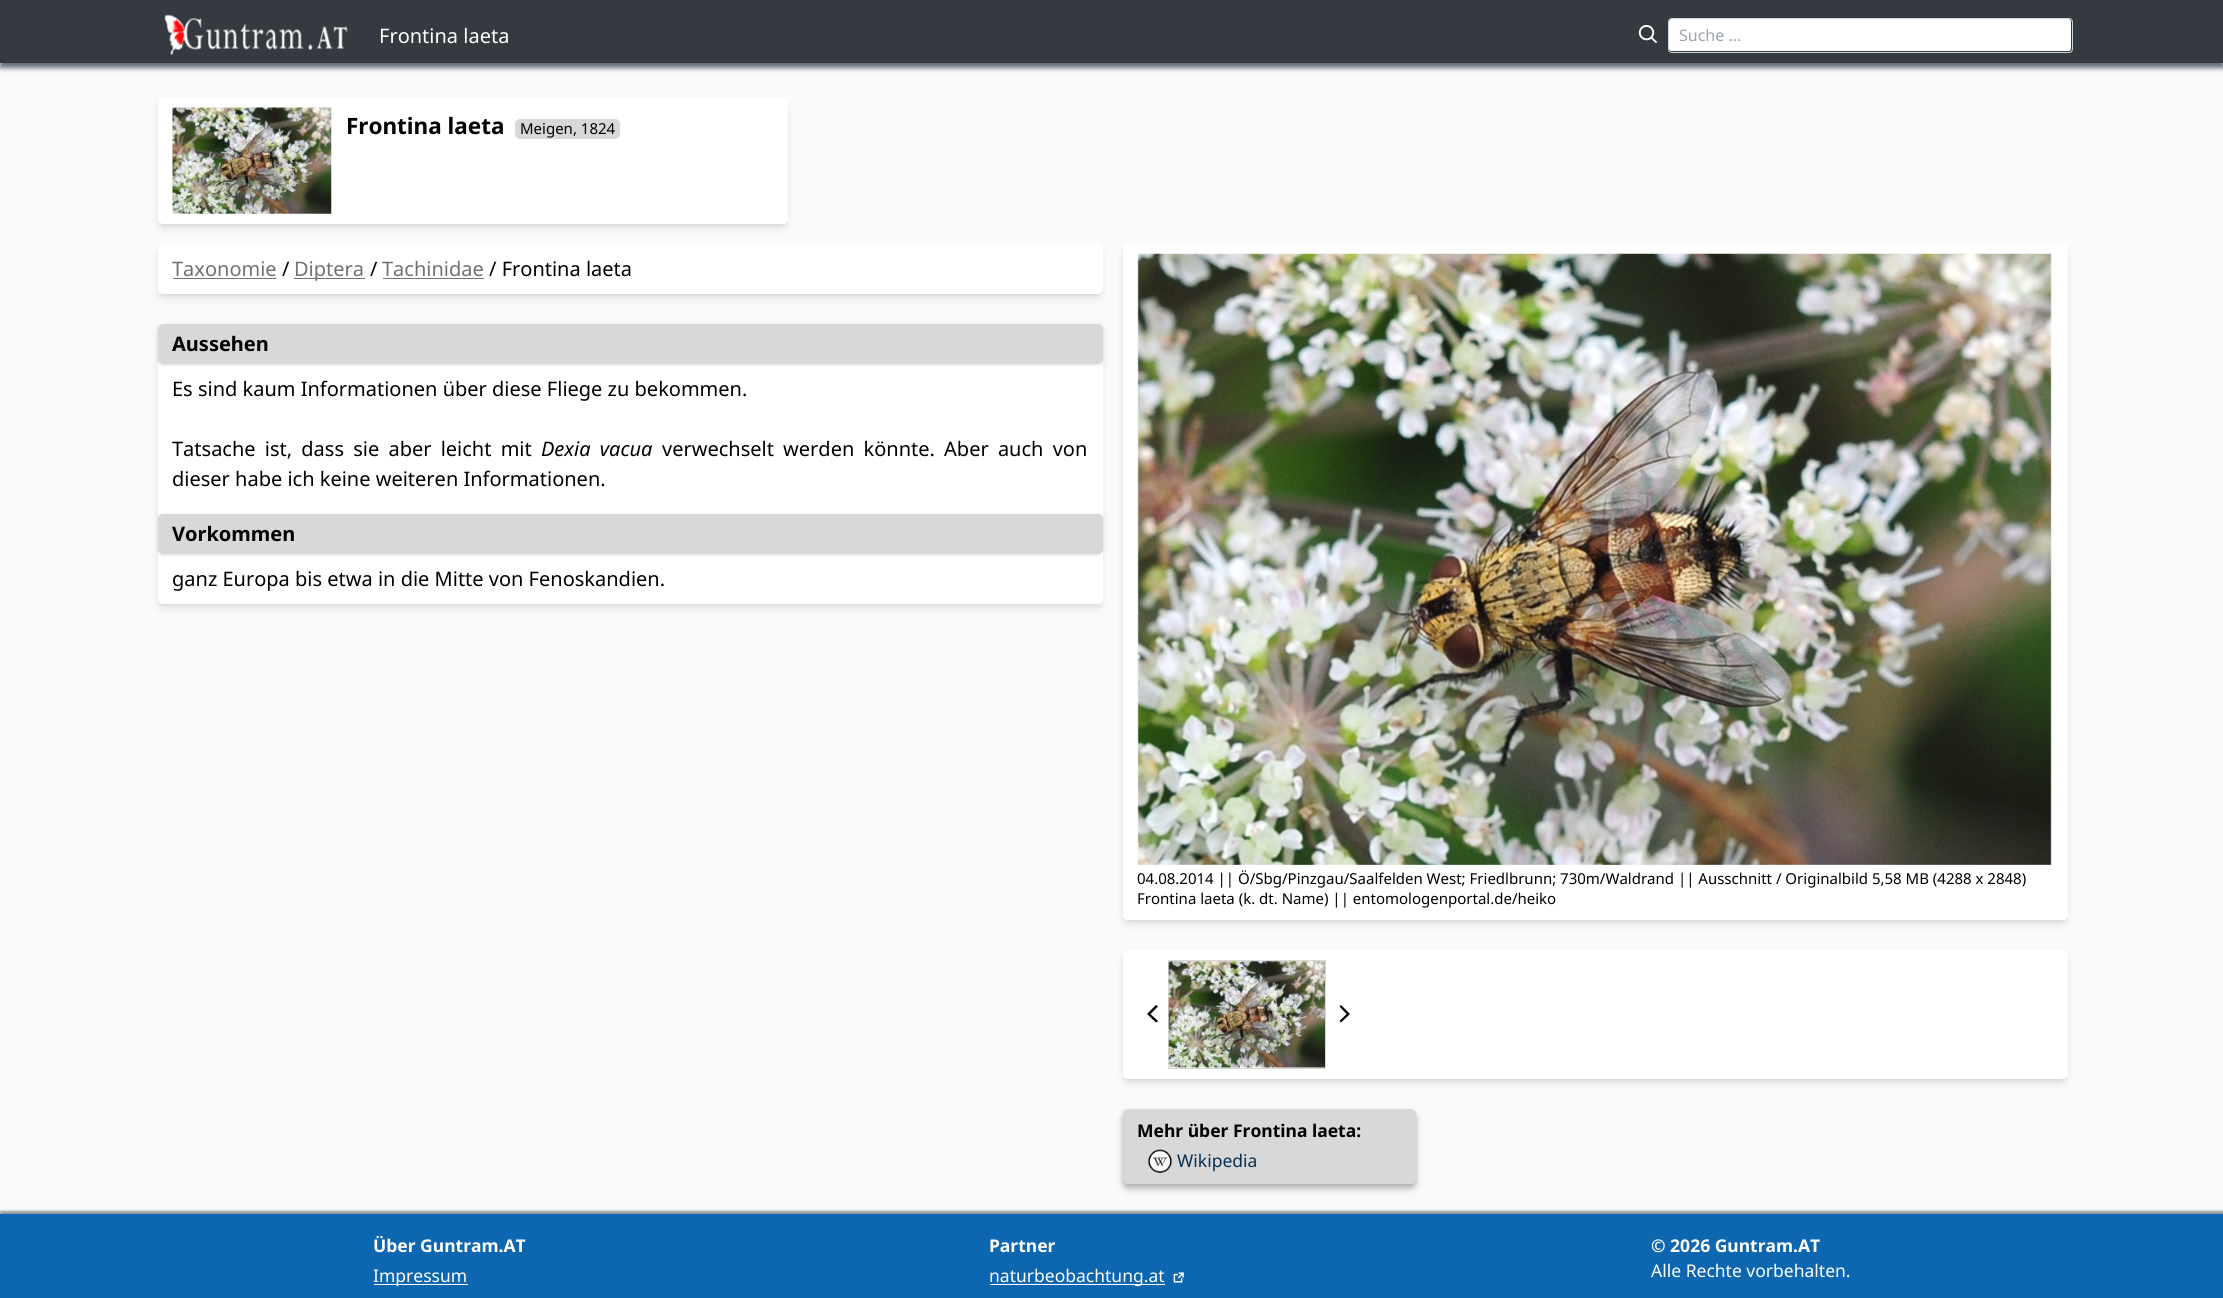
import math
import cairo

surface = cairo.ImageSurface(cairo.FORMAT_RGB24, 2223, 1298)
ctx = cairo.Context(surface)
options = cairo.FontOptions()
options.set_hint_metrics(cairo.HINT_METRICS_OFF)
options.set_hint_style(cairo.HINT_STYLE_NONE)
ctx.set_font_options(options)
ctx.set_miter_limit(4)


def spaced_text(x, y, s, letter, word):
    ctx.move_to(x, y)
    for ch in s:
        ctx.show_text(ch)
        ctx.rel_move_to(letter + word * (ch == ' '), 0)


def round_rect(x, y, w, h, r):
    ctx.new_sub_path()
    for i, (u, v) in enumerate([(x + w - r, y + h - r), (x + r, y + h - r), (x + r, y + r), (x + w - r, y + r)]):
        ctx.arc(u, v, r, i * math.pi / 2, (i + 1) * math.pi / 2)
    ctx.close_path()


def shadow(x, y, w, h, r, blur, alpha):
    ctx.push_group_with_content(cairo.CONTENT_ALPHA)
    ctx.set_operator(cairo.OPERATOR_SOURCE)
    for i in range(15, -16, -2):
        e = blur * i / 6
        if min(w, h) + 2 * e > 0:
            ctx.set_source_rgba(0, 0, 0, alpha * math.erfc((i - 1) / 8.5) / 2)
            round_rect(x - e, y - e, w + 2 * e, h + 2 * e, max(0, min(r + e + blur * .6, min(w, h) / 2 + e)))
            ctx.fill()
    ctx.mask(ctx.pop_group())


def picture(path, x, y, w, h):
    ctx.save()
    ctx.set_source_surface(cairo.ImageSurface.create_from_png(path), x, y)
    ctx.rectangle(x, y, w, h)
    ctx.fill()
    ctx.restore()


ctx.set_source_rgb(0.973, 0.98, 0.988)
ctx.paint()
ctx.set_source_rgb(0.384, 0.427, 0.471)
shadow(0, 5, 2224, 63, 0, 2.5, 1)
ctx.set_source_rgb(0.204, 0.227, 0.251)
ctx.rectangle(0, 0, 2223, 63)
ctx.fill()
picture("img1.png", 164, 14, 184, 41)
ctx.select_font_face("Noto Sans")
ctx.set_font_size(20)
ctx.set_source_rgb(1, 1, 1)
ctx.move_to(379, 43)
ctx.show_text("Frontina laeta")
picture("img2.png", 1638, 25, 19, 18)
round_rect(1669, 19, 402, 32, 2.5)
ctx.fill()
round_rect(1668.5, 18.5, 404, 34, 3.5)
ctx.set_source_rgb(0.808, 0.831, 0.855)
ctx.set_line_width(1)
ctx.stroke()
ctx.set_font_size(16)
ctx.set_source_rgb(0.612, 0.639, 0.686)
ctx.move_to(1679, 41)
ctx.show_text("Suche ...")
ctx.set_source_rgb(0, 0, 0)
shadow(160, 103, 625, 121, 2.5, 2.5, 0.1)
shadow(159, 104, 627, 124, 4, 4, 0.1)
ctx.set_source_rgb(1, 1, 1)
round_rect(158, 98, 630, 126, 5)
ctx.fill()
picture("img3.png", 172, 107, 160, 107)
ctx.select_font_face("Noto Sans", cairo.FONT_SLANT_NORMAL, cairo.FONT_WEIGHT_BOLD)
ctx.set_font_size(22.5)
ctx.set_source_rgb(0, 0, 0)
ctx.move_to(346, 134)
ctx.show_text("Frontina laeta")
ctx.set_source_rgb(0.847, 0.847, 0.847)
round_rect(515, 119, 105, 20, 5)
ctx.fill()
ctx.select_font_face("Noto Sans")
ctx.set_font_size(15)
ctx.set_source_rgb(0, 0, 0)
ctx.move_to(520, 134)
ctx.show_text("Meigen, 1824")
ctx.set_source_rgb(0, 0, 0)
shadow(160, 249, 940, 45, 2.5, 2.5, 0.1)
shadow(159, 250, 942, 48, 4, 4, 0.1)
ctx.set_source_rgb(1, 1, 1)
round_rect(158, 244, 945, 50, 5)
ctx.fill()
ctx.set_font_size(20)
ctx.set_source_rgb(0.443, 0.443, 0.443)
ctx.move_to(172, 276)
ctx.show_text("Taxonomie")
ctx.rectangle(173, 278, 103, 1)
ctx.fill()
ctx.set_source_rgb(0, 0, 0)
ctx.move_to(282, 276)
ctx.show_text("/")
ctx.set_source_rgb(0.443, 0.443, 0.443)
ctx.rectangle(294, 278, 71, 1)
ctx.fill()
ctx.move_to(294, 276)
ctx.show_text("Diptera")
ctx.set_source_rgb(0, 0, 0)
ctx.move_to(370, 276)
ctx.show_text("/")
ctx.set_source_rgb(0.443, 0.443, 0.443)
ctx.move_to(382, 276)
ctx.show_text("Tachinidae")
ctx.rectangle(383, 278, 101, 1)
ctx.fill()
ctx.set_source_rgb(0, 0, 0)
ctx.move_to(489, 276)
ctx.show_text("/ Frontina laeta")
ctx.set_source_rgb(0, 0, 0)
shadow(160, 329, 940, 275, 2.5, 2.5, 0.1)
shadow(159, 330, 942, 278, 4, 4, 0.1)
ctx.set_source_rgb(1, 1, 1)
round_rect(158, 324, 945, 280, 5)
ctx.fill()
ctx.set_source_rgb(0, 0, 0)
shadow(159, 326, 942, 38, 4, 1, 0.1)
shadow(158, 325, 945, 40, 5, 2, 0.1)
ctx.set_source_rgb(0.847, 0.847, 0.847)
round_rect(158, 324, 945, 40, 5)
ctx.fill()
ctx.select_font_face("Noto Sans", cairo.FONT_SLANT_NORMAL, cairo.FONT_WEIGHT_BOLD)
ctx.set_source_rgb(0, 0, 0)
ctx.move_to(172, 351)
ctx.show_text("Aussehen")
ctx.select_font_face("Noto Sans")
ctx.move_to(172, 396)
ctx.show_text("Es sind kaum Informationen über diese Fliege zu bekommen.")
spaced_text(172, 456, "Tatsache ist, dass sie aber leicht mit", 0, 4)
ctx.select_font_face("Noto Sans", cairo.FONT_SLANT_ITALIC)
spaced_text(541, 456, "Dexia vacua", 0, 4)
ctx.select_font_face("Noto Sans")
spaced_text(662, 456, "verwechselt werden könnte. Aber auch von", 0, 4)
ctx.move_to(172, 486)
ctx.show_text("dieser habe ich keine weiteren Informationen.")
ctx.set_source_rgb(0, 0, 0)
shadow(159, 516, 942, 38, 4, 1, 0.1)
shadow(158, 515, 945, 40, 5, 2, 0.1)
ctx.set_source_rgb(0.847, 0.847, 0.847)
round_rect(158, 514, 945, 40, 5)
ctx.fill()
ctx.select_font_face("Noto Sans", cairo.FONT_SLANT_NORMAL, cairo.FONT_WEIGHT_BOLD)
ctx.set_source_rgb(0, 0, 0)
ctx.move_to(172, 541)
ctx.show_text("Vorkommen")
ctx.select_font_face("Noto Sans")
ctx.move_to(172, 586)
ctx.show_text("ganz Europa bis etwa in die Mitte von Fenoskandien.")
ctx.set_source_rgb(0, 0, 0)
shadow(1125, 249, 940, 671, 2.5, 2.5, 0.1)
shadow(1124, 250, 942, 674, 4, 4, 0.1)
ctx.set_source_rgb(1, 1, 1)
round_rect(1123, 244, 945, 676, 5)
ctx.fill()
picture("img4.png", 1137, 253, 915, 612)
ctx.set_font_size(15)
ctx.set_source_rgb(0, 0, 0)
ctx.move_to(1137, 884)
ctx.show_text("04.08.2014 || Ö/Sbg/Pinzgau/Saalfelden West; Friedlbrunn; 730m/Waldrand || Ausschnitt / Originalbild 5,58 MB (4288 x 2848)")
ctx.move_to(1137, 904)
ctx.show_text("Frontina laeta (k. dt. Name) || entomologenportal.de/heiko")
ctx.set_source_rgb(0, 0, 0)
shadow(1125, 955, 940, 124, 2.5, 2.5, 0.1)
shadow(1124, 956, 942, 127, 4, 4, 0.1)
ctx.set_source_rgb(1, 1, 1)
round_rect(1123, 950, 945, 129, 5)
ctx.fill()
ctx.set_source_rgb(0, 0, 0)
ctx.new_path()
ctx.move_to(1158, 1006.5)
ctx.line_to(1156, 1005)
ctx.line_to(1147, 1014)
ctx.line_to(1156, 1022.5)
ctx.line_to(1158, 1021)
ctx.line_to(1150.5, 1014)
ctx.close_path()
ctx.fill()
ctx.rectangle(1168.5, 960.5, 157, 108)
ctx.set_source_rgb(0.847, 0.847, 0.847)
ctx.stroke()
picture("img5.png", 1168, 961, 157, 107)
ctx.set_source_rgb(0, 0, 0)
ctx.new_path()
ctx.move_to(1339.5, 1006.5)
ctx.line_to(1341, 1005)
ctx.line_to(1350, 1014)
ctx.line_to(1341, 1022.5)
ctx.line_to(1339.5, 1021)
ctx.line_to(1346.5, 1014)
ctx.close_path()
ctx.fill()
ctx.set_source_rgb(0.675, 0.675, 0.675)
shadow(1125, 1114, 289, 70, 2.5, 2.5, 1)
shadow(1124, 1115, 291, 73, 4, 4, 1)
ctx.set_source_rgb(0.847, 0.847, 0.847)
round_rect(1123, 1109, 293, 75, 5)
ctx.fill()
ctx.select_font_face("Noto Sans", cairo.FONT_SLANT_NORMAL, cairo.FONT_WEIGHT_BOLD)
ctx.set_font_size(17.5)
ctx.set_source_rgb(0, 0, 0)
ctx.move_to(1137, 1137)
ctx.show_text("Mehr über Frontina laeta:")
picture("img6.png", 1148, 1149, 24, 24)
ctx.select_font_face("Noto Sans")
ctx.set_source_rgb(0.024, 0.184, 0.318)
ctx.move_to(1177, 1167)
ctx.show_text("Wikipedia")
ctx.set_source_rgb(0.596, 0.596, 0.596)
shadow(0, 1211, 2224, 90, 0, 1, 1)
ctx.set_source_rgb(0.051, 0.4, 0.69)
ctx.rectangle(0, 1214, 2223, 84)
ctx.fill()
ctx.select_font_face("Noto Sans", cairo.FONT_SLANT_NORMAL, cairo.FONT_WEIGHT_BOLD)
ctx.set_source_rgb(1, 1, 1)
ctx.move_to(373, 1252)
ctx.show_text("Über Guntram.AT")
ctx.rectangle(374, 1284, 94, 1)
ctx.fill()
ctx.select_font_face("Noto Sans")
ctx.move_to(373, 1282)
ctx.show_text("Impressum")
ctx.select_font_face("Noto Sans", cairo.FONT_SLANT_NORMAL, cairo.FONT_WEIGHT_BOLD)
ctx.move_to(989, 1252)
ctx.show_text("Partner")
ctx.rectangle(990, 1284, 175, 1)
ctx.fill()
ctx.select_font_face("Noto Sans")
ctx.move_to(989, 1282)
ctx.show_text("naturbeobachtung.at")
picture("img7.png", 1173, 1272, 11, 11)
ctx.select_font_face("Noto Sans", cairo.FONT_SLANT_NORMAL, cairo.FONT_WEIGHT_BOLD)
ctx.move_to(1651, 1252)
ctx.show_text("© 2026 Guntram.AT")
ctx.select_font_face("Noto Sans")
ctx.move_to(1651, 1277)
ctx.show_text("Alle Rechte vorbehalten.")
surface.write_to_png("page.png")
